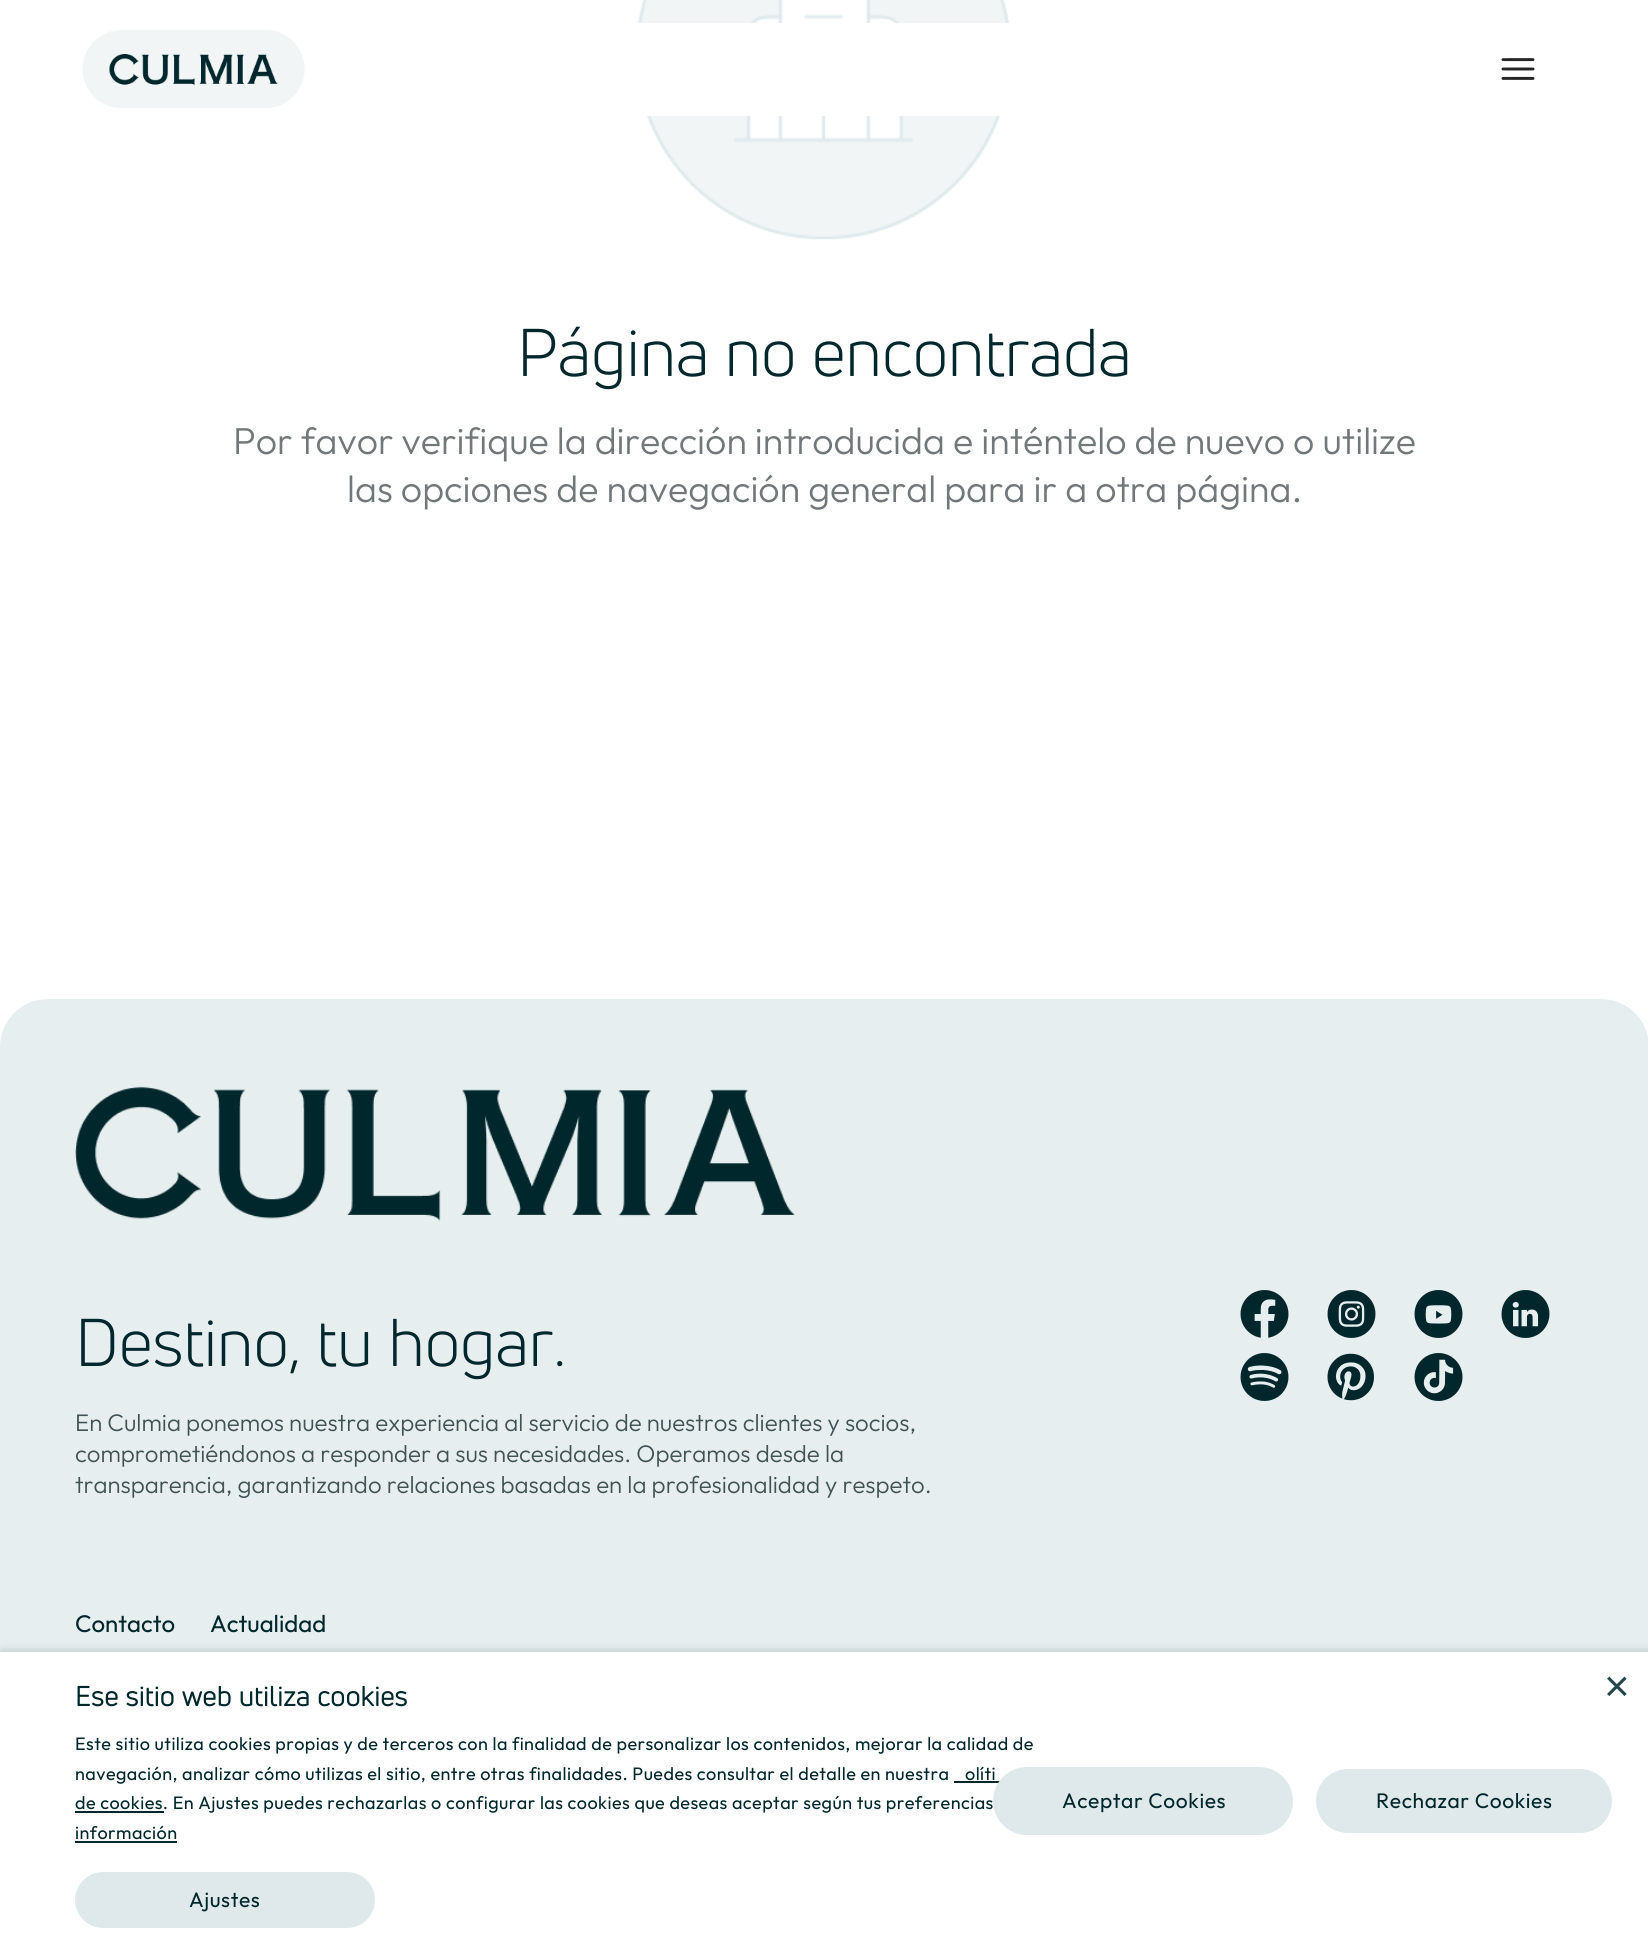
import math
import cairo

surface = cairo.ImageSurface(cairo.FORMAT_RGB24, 1648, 1949)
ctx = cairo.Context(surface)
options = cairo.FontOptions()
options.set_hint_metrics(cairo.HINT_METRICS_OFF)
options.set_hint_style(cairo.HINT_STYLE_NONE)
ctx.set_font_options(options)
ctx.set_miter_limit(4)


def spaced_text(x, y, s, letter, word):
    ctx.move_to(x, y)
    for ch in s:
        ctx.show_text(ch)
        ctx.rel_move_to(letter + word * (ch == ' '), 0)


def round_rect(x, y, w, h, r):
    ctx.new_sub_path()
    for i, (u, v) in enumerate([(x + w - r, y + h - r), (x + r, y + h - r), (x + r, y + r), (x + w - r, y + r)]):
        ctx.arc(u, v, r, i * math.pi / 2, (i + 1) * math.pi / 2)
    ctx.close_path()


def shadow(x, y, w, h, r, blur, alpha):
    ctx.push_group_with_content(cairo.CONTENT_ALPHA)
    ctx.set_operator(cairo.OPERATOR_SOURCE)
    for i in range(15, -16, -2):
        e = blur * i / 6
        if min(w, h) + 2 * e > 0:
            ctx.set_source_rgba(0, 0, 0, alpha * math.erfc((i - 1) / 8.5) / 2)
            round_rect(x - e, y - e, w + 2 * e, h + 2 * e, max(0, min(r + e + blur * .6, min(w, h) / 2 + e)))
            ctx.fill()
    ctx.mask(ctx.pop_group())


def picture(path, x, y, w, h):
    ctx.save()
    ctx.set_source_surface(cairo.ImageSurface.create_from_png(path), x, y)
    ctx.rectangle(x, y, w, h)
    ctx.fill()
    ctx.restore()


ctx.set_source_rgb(1, 1, 1)
ctx.paint()
picture("img3.png", 637, 0, 373, 240)
ctx.set_source_rgb(1, 1, 1)
round_rect(75, 23, 1499, 93, 46.5)
ctx.fill()
picture("img1.png", 82, 30, 223, 78)
picture("img2.png", 1501, 58, 34, 22)
ctx.select_font_face("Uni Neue")
ctx.set_font_size(66)
ctx.set_source_rgb(0, 0.153, 0.173)
ctx.move_to(517, 376)
ctx.show_text("Página no encontrada")
ctx.select_font_face("Outfit Light")
ctx.set_font_size(37.5)
ctx.set_source_rgb(0.447, 0.467, 0.475)
ctx.move_to(233, 454)
ctx.show_text("Por favor verifique la dirección introducida e inténtelo de nuevo o utilize")
ctx.move_to(347, 502)
ctx.show_text("las opciones de navegación general para ir a otra página.")
ctx.set_source_rgb(0.902, 0.933, 0.941)
ctx.new_path()
ctx.move_to(48, 999)
ctx.line_to(1601, 999)
ctx.curve_to(1627.5, 999, 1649, 1020.5, 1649, 1047)
ctx.line_to(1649, 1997)
ctx.line_to(0, 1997)
ctx.line_to(0, 1047)
ctx.curve_to(0, 1020.5, 21.5, 999, 48, 999)
ctx.close_path()
ctx.fill()
picture("img4.png", 75, 1086, 720, 135)
ctx.select_font_face("Uni Neue")
ctx.set_font_size(66)
ctx.set_source_rgb(0, 0.153, 0.173)
ctx.move_to(75, 1366)
ctx.show_text("Destino, tu hogar.")
ctx.select_font_face("Outfit Light")
ctx.set_font_size(24)
ctx.set_source_rgb(0.255, 0.322, 0.329)
ctx.move_to(75, 1431)
ctx.show_text("En Culmia ponemos nuestra experiencia al servicio de nuestros clientes y socios,")
ctx.move_to(75, 1462)
ctx.show_text("comprometiéndonos a responder a sus necesidades. Operamos desde la")
ctx.move_to(75, 1493)
ctx.show_text("transparencia, garantizando relaciones basadas en la profesionalidad y respeto.")
picture("img5.png", 1240, 1290, 49, 48)
picture("img6.png", 1327, 1290, 49, 48)
picture("img7.png", 1414, 1290, 49, 48)
picture("img8.png", 1501, 1290, 49, 48)
picture("img9.png", 1240, 1353, 49, 48)
picture("img10.png", 1327, 1353, 47, 48)
picture("img11.png", 1414, 1353, 49, 48)
ctx.select_font_face("Outfit")
ctx.set_source_rgb(0, 0.153, 0.173)
ctx.move_to(75, 1632)
ctx.show_text("Contacto")
ctx.move_to(210, 1632)
ctx.show_text("Actualidad")
ctx.set_source_rgb(0, 0, 0)
shadow(2, 1655, 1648, 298, 0, 6, 0.35)
ctx.set_source_rgb(1, 1, 1)
ctx.rectangle(0, 1652, 1648, 297)
ctx.fill()
ctx.select_font_face("Uni Neue", cairo.FONT_SLANT_NORMAL, cairo.FONT_WEIGHT_BOLD)
ctx.set_font_size(27)
ctx.set_source_rgb(0, 0.153, 0.173)
spaced_text(75, 1706, "Ese sitio web utiliza cookies", 0.6, 0)
ctx.select_font_face("Outfit")
ctx.set_font_size(18)
spaced_text(75, 1750, "Este sitio utiliza cookies propias y de terceros con la finalidad de personalizar los contenidos, mejorar la calidad de", 0.45, 0)
spaced_text(75, 1780, "navegación, analizar cómo utilizas el sitio, entre otras finalidades. Puedes consultar el detalle en nuestra", 0.45, 0)
spaced_text(965, 1780, "olíti", 0.45, 0)
ctx.rectangle(954, 1781, 46, 2)
ctx.fill()
ctx.rectangle(75, 1811, 89, 2)
ctx.fill()
spaced_text(75, 1809, "de cookies. En Ajustes puedes rechazarlas o configurar las cookies que deseas aceptar según tus preferencias", 0.45, 0)
spaced_text(75, 1839, "información", 0.45, 0)
ctx.rectangle(75, 1841, 102, 2)
ctx.fill()
ctx.set_source_rgb(0.875, 0.914, 0.925)
round_rect(75, 1872, 300, 56, 28)
ctx.fill()
ctx.set_font_size(21)
ctx.set_source_rgb(0, 0.153, 0.173)
spaced_text(189, 1907, "Ajustes", 0.6, 0)
ctx.set_source_rgb(0.875, 0.914, 0.925)
round_rect(993, 1767, 300, 68, 34)
ctx.fill()
ctx.set_source_rgb(0, 0.153, 0.173)
spaced_text(1062, 1808, "Aceptar Cookies", 0.6, 0)
ctx.set_source_rgb(0.875, 0.914, 0.925)
round_rect(1315, 1768, 298, 66, 33)
ctx.fill_preserve()
ctx.set_source_rgb(1, 1, 1)
ctx.stroke()
ctx.set_source_rgb(0, 0.153, 0.173)
spaced_text(1376, 1808, "Rechazar Cookies", 0.6, 0)
ctx.select_font_face("Liberation Sans")
ctx.set_font_size(44)
ctx.set_source_rgb(0.149, 0.278, 0.298)
ctx.move_to(1604, 1701)
ctx.show_text("×")
surface.write_to_png("page.png")
